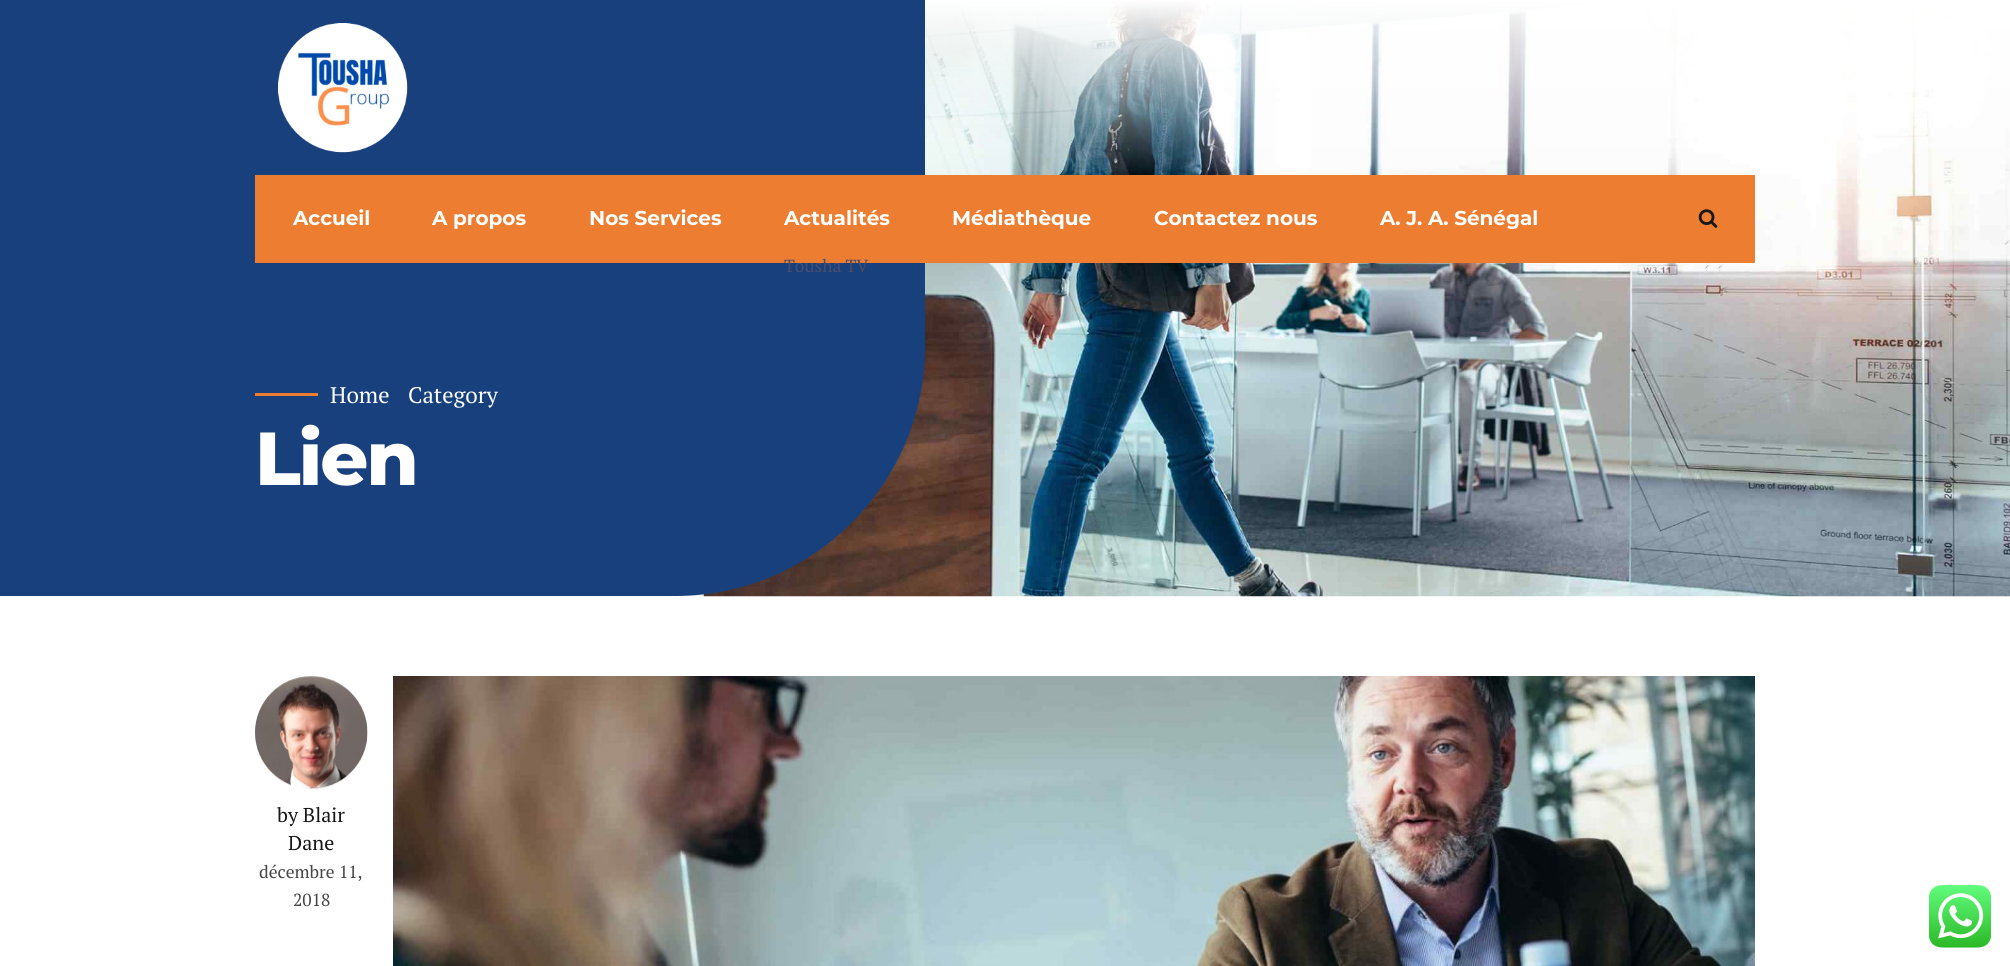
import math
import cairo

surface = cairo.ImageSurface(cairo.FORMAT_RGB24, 2010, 966)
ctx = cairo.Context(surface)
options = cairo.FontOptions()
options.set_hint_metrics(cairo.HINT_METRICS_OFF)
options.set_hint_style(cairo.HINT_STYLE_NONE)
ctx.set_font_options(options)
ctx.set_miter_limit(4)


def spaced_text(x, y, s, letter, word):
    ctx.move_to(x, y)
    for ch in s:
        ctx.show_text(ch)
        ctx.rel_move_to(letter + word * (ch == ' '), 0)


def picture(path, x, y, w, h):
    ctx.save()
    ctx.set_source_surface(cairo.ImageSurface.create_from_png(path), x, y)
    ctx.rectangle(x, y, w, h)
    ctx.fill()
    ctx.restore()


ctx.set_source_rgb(1, 1, 1)
ctx.paint()
ctx.set_source_rgb(0.957, 0.957, 0.957)
ctx.rectangle(677, 594, 27, 2)
ctx.fill()
picture("img3.png", 703, 1, 1307, 596)
ctx.set_source_rgb(0.094, 0.251, 0.486)
ctx.new_path()
ctx.move_to(0, 0)
ctx.line_to(925, 0)
ctx.line_to(925, 346)
ctx.curve_to(925, 484, 813, 596, 675, 596)
ctx.line_to(0, 596)
ctx.close_path()
ctx.fill()
picture("img1.png", 278, 23, 130, 130)
ctx.set_source_rgb(0.929, 0.49, 0.192)
ctx.rectangle(255, 175, 1500, 88)
ctx.fill()
ctx.select_font_face("Montserrat", cairo.FONT_SLANT_NORMAL, cairo.FONT_WEIGHT_BOLD)
ctx.set_font_size(20)
ctx.set_source_rgb(1, 1, 1)
ctx.move_to(293, 225)
ctx.show_text("Accueil")
ctx.move_to(432, 225)
ctx.show_text("A propos")
ctx.move_to(589, 225)
ctx.show_text("Nos Services")
ctx.move_to(784, 225)
ctx.show_text("Actualités")
ctx.select_font_face("PT Serif")
ctx.set_font_size(17.5)
ctx.set_source_rgb(0.29, 0.306, 0.416)
ctx.move_to(784, 272)
ctx.show_text("Tousha TV")
ctx.select_font_face("Montserrat", cairo.FONT_SLANT_NORMAL, cairo.FONT_WEIGHT_BOLD)
ctx.set_font_size(20)
ctx.set_source_rgb(1, 1, 1)
ctx.move_to(952, 225)
ctx.show_text("Médiathèque")
ctx.move_to(1154, 225)
ctx.show_text("Contactez nous")
ctx.move_to(1380, 225)
ctx.show_text("A. J. A. Sénégal")
picture("img2.png", 1698, 209, 20, 19)
gradient = cairo.LinearGradient(1005, 0, 1005, 175)
gradient.add_color_stop_rgba(0, 1, 1, 1, 1)
gradient.add_color_stop_rgba(1, 1, 1, 1, 0)
ctx.set_source(gradient)
ctx.rectangle(925, 1, 1085, 170)
ctx.fill()
ctx.set_source_rgb(0.929, 0.49, 0.192)
ctx.rectangle(255, 393, 63, 3)
ctx.fill()
ctx.select_font_face("PT Serif")
ctx.set_font_size(22.5)
ctx.set_source_rgb(1, 1, 1)
ctx.move_to(330, 403)
ctx.show_text("Home")
ctx.move_to(408, 403)
ctx.show_text("Category")
ctx.select_font_face("Montserrat ExtraBold")
ctx.set_font_size(75)
spaced_text(255, 485, "Lien", -2, 0)
picture("img4.png", 255, 676, 113, 114)
ctx.select_font_face("PT Serif")
ctx.set_font_size(20)
ctx.set_source_rgb(0.094, 0.094, 0.094)
ctx.move_to(277, 822)
ctx.show_text("by Blair")
ctx.move_to(288, 850)
ctx.show_text("Dane")
ctx.set_font_size(17.5)
ctx.set_source_rgb(0.275, 0.275, 0.275)
ctx.move_to(259, 878)
ctx.show_text("décembre 11,")
ctx.move_to(293, 906)
ctx.show_text("2018")
picture("img5.png", 393, 676, 1362, 290)
picture("img6.png", 1929, 885, 62, 63)
surface.write_to_png("page.png")
